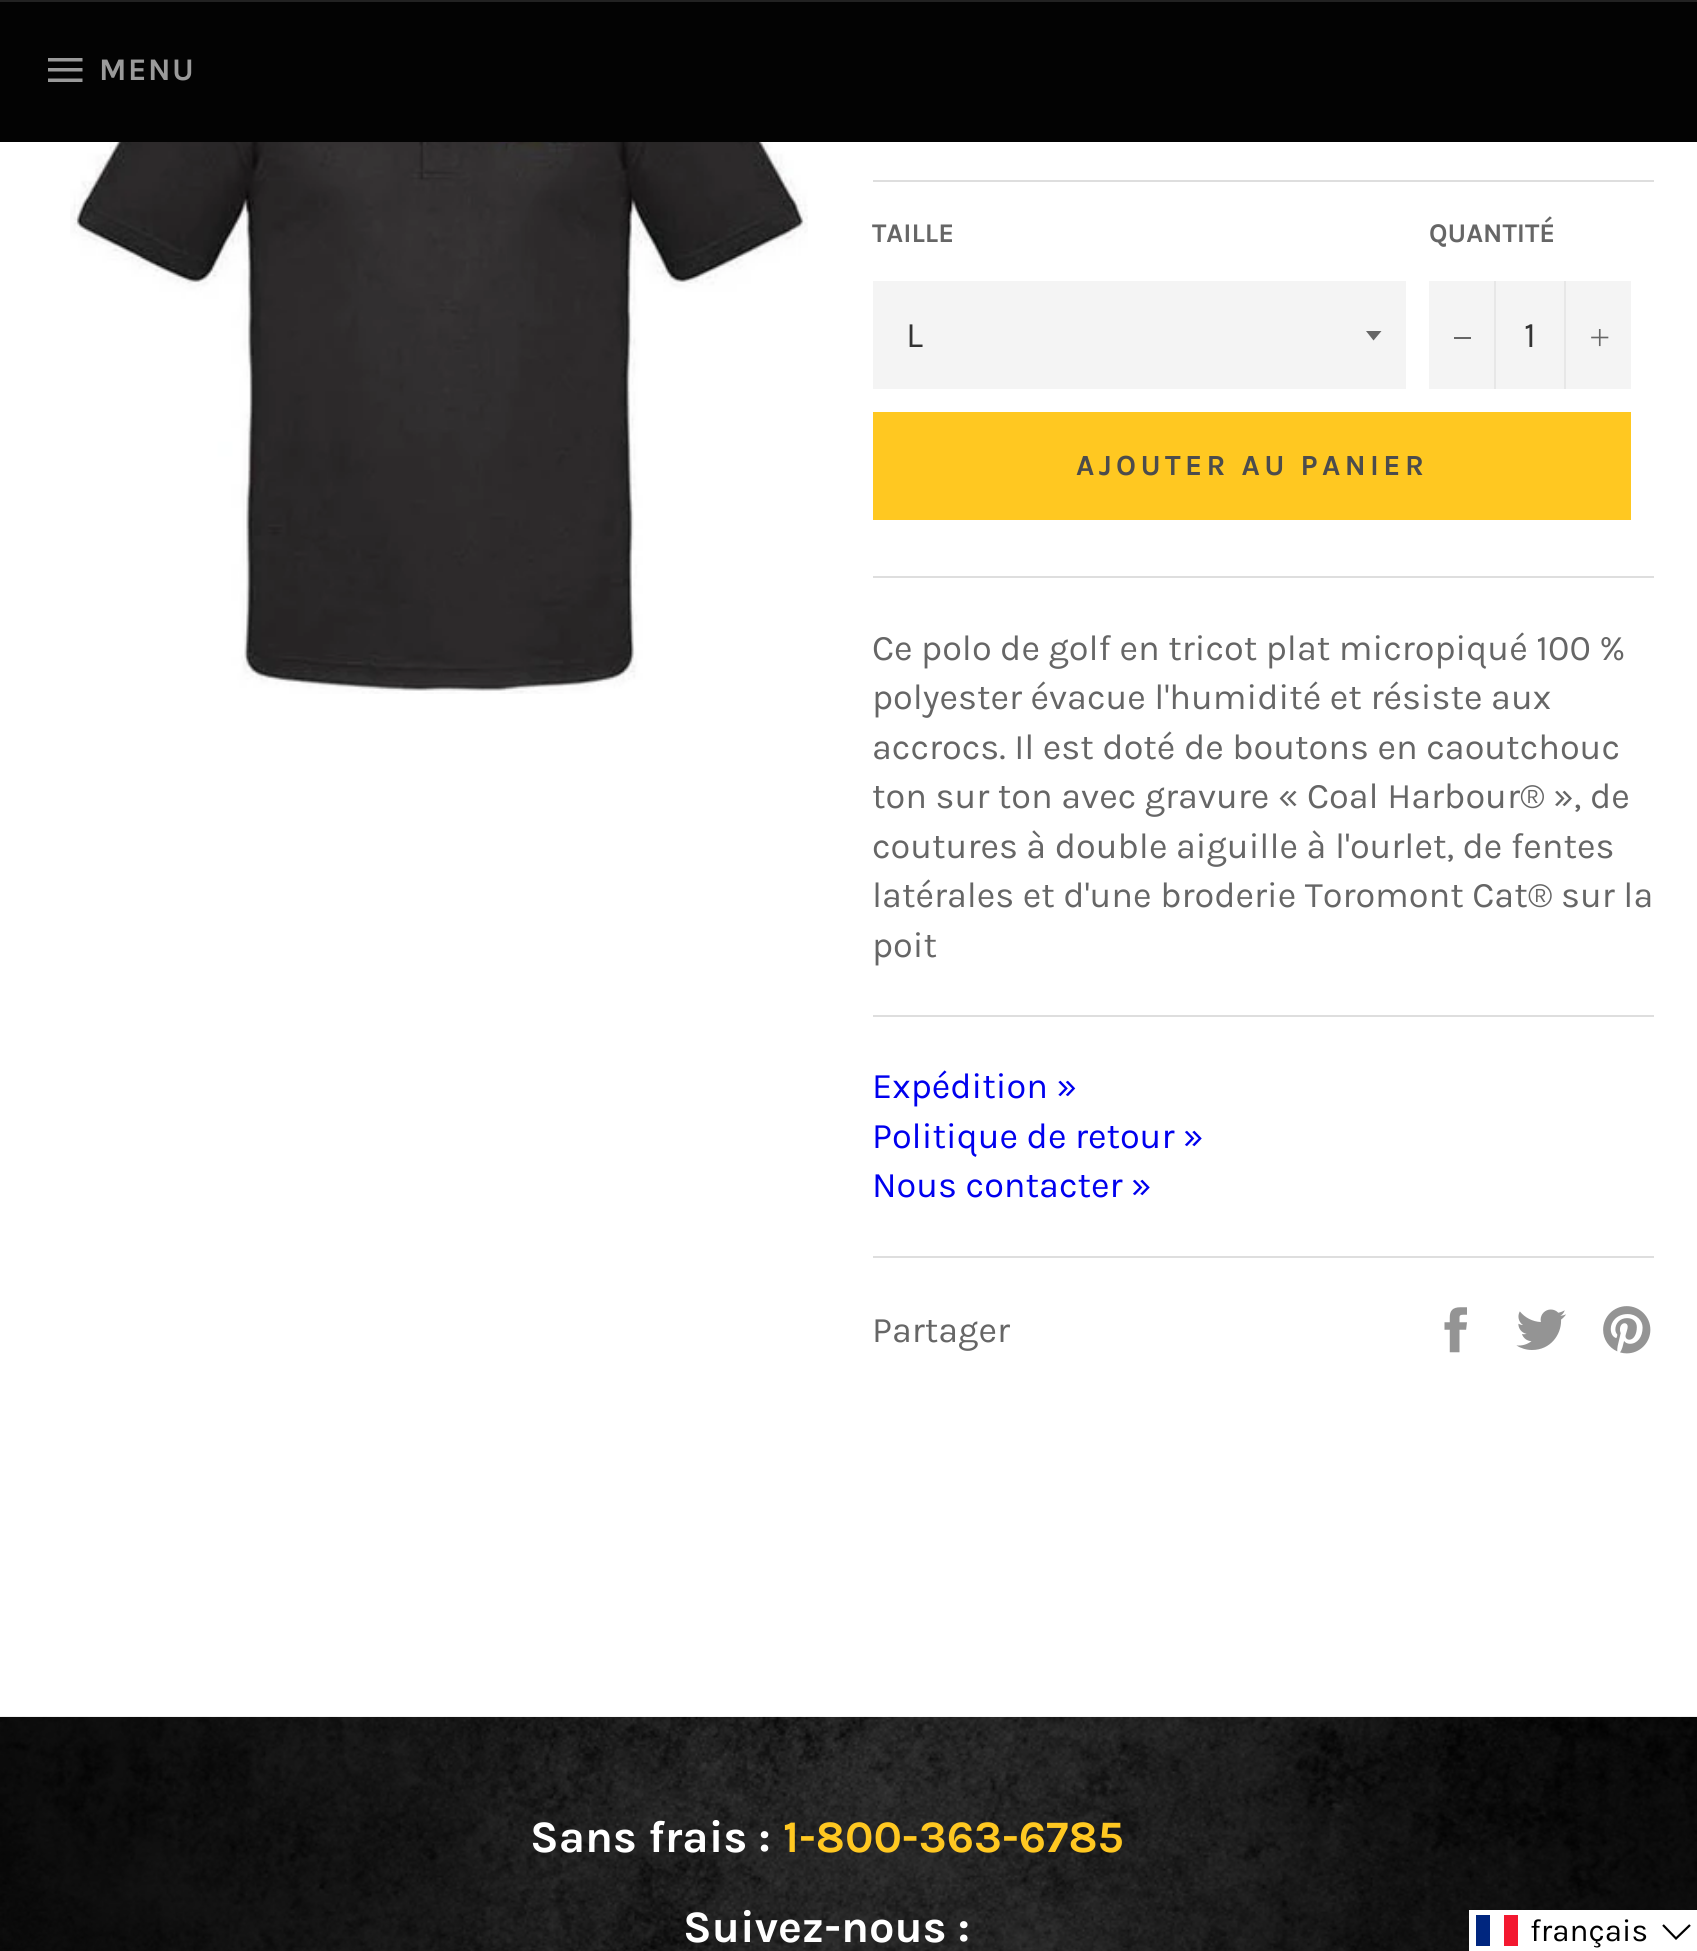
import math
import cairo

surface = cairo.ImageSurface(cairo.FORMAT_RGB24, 1697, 1951)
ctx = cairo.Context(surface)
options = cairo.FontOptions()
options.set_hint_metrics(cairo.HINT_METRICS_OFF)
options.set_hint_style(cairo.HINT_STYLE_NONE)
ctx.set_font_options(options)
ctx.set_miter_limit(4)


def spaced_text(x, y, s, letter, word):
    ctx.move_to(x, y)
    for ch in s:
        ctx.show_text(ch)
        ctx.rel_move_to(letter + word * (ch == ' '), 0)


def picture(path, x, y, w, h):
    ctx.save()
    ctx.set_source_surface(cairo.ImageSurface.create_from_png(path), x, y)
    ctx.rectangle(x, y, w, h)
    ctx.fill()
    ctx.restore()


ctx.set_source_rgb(1, 1, 1)
ctx.paint()
ctx.set_source_rgb(0.012, 0.012, 0.012)
ctx.rectangle(0, 2, 1697, 140)
ctx.fill()
ctx.set_source_rgb(0.133, 0.133, 0.133)
ctx.rectangle(0, 0, 1697, 2)
ctx.fill()
ctx.set_source_rgb(0.604, 0.604, 0.604)
ctx.new_path()
ctx.move_to(48, 68)
ctx.line_to(82.5, 68)
ctx.line_to(82.5, 71.5)
ctx.line_to(48, 71.5)
ctx.close_path()
ctx.move_to(48, 58)
ctx.line_to(82.5, 58)
ctx.line_to(82.5, 61.5)
ctx.line_to(48, 61.5)
ctx.close_path()
ctx.move_to(48, 78.5)
ctx.line_to(82.5, 78.5)
ctx.line_to(82.5, 82)
ctx.line_to(48, 82)
ctx.close_path()
ctx.fill()
ctx.select_font_face("Karla", cairo.FONT_SLANT_NORMAL, cairo.FONT_WEIGHT_BOLD)
ctx.set_font_size(31.5)
spaced_text(99, 80, "MENU", 1.5, 0)
picture("img1.png", 70, 142, 738, 552)
ctx.set_source_rgb(0.871, 0.871, 0.871)
ctx.rectangle(873, 180, 781, 2)
ctx.fill()
ctx.set_font_size(27)
ctx.set_source_rgb(0.4, 0.4, 0.4)
ctx.move_to(872, 242)
ctx.show_text("TAILLE")
ctx.set_source_rgb(0.957, 0.957, 0.957)
ctx.rectangle(873, 281, 533, 108)
ctx.fill()
ctx.set_source_rgb(0.4, 0.4, 0.4)
ctx.new_path()
ctx.move_to(1366, 331)
ctx.line_to(1373.5, 340.5)
ctx.line_to(1381.5, 331)
ctx.close_path()
ctx.fill()
ctx.select_font_face("Karla")
ctx.set_font_size(36)
ctx.set_source_rgb(0.2, 0.2, 0.2)
ctx.move_to(906, 347)
ctx.show_text("L")
ctx.select_font_face("Karla", cairo.FONT_SLANT_NORMAL, cairo.FONT_WEIGHT_BOLD)
ctx.set_font_size(27)
ctx.set_source_rgb(0.4, 0.4, 0.4)
ctx.move_to(1429, 242)
ctx.show_text("QUANTITÉ")
ctx.set_source_rgb(0.957, 0.957, 0.957)
ctx.rectangle(1429, 281, 202, 108)
ctx.fill()
ctx.set_source_rgb(0.906, 0.906, 0.906)
ctx.rectangle(1494, 281, 2, 108)
ctx.fill()
ctx.set_source_rgb(0.4, 0.4, 0.4)
ctx.rectangle(1454, 337, 17, 2)
ctx.fill()
ctx.select_font_face("Karla")
ctx.set_font_size(36)
ctx.set_source_rgb(0.2, 0.2, 0.2)
ctx.move_to(1524, 347)
ctx.show_text("1")
ctx.set_source_rgb(0.906, 0.906, 0.906)
ctx.rectangle(1564, 281, 2, 108)
ctx.fill()
picture("img2.png", 1591, 329, 18, 18)
ctx.set_source_rgb(1, 0.784, 0.129)
ctx.rectangle(873, 412, 758, 108)
ctx.fill()
ctx.select_font_face("Karla", cairo.FONT_SLANT_NORMAL, cairo.FONT_WEIGHT_BOLD)
ctx.set_font_size(29.25)
ctx.set_source_rgb(0.298, 0.298, 0.298)
spaced_text(1076, 475, "AJOUTER AU PANIER", 4.4, 0)
ctx.set_source_rgb(0.871, 0.871, 0.871)
ctx.rectangle(873, 576, 781, 2)
ctx.fill()
ctx.select_font_face("Karla")
ctx.set_font_size(36)
ctx.set_source_rgb(0.4, 0.4, 0.4)
ctx.move_to(872, 660)
ctx.show_text("Ce polo de golf en tricot plat micropiqué 100 %")
ctx.move_to(872, 709)
ctx.show_text("polyester évacue l'humidité et résiste aux")
ctx.move_to(872, 759)
ctx.show_text("accrocs. Il est doté de boutons en caoutchouc")
ctx.move_to(872, 808)
ctx.show_text("ton sur ton avec gravure « Coal Harbour® », de")
ctx.move_to(872, 858)
ctx.show_text("coutures à double aiguille à l'ourlet, de fentes")
ctx.move_to(872, 907)
ctx.show_text("latérales et d'une broderie Toromont Cat® sur la")
ctx.move_to(872, 957)
ctx.show_text("poit")
ctx.set_source_rgb(0.871, 0.871, 0.871)
ctx.rectangle(873, 1015, 781, 2)
ctx.fill()
ctx.set_source_rgb(0, 0, 0.933)
ctx.move_to(872, 1098)
ctx.show_text("Expédition »")
ctx.move_to(872, 1148)
ctx.show_text("Politique de retour »")
ctx.move_to(872, 1197)
ctx.show_text("Nous contacter »")
ctx.set_source_rgb(0.871, 0.871, 0.871)
ctx.rectangle(873, 1256, 781, 2)
ctx.fill()
ctx.set_source_rgb(0.4, 0.4, 0.4)
ctx.move_to(872, 1342)
ctx.show_text("Partager")
picture("img3.png", 1444, 1307, 23, 46)
picture("img4.png", 1516, 1309, 50, 41)
picture("img5.png", 1603, 1306, 48, 48)
ctx.set_source_rgb(0.012, 0.012, 0.012)
ctx.rectangle(0, 1717, 1697, 234)
ctx.fill()
picture("img6.png", 0, 1716, 1697, 235)
ctx.select_font_face("Karla", cairo.FONT_SLANT_NORMAL, cairo.FONT_WEIGHT_BOLD)
ctx.set_font_size(45)
ctx.set_source_rgb(1, 1, 1)
ctx.move_to(530, 1852)
ctx.show_text("Sans frais :")
ctx.set_source_rgb(1, 0.784, 0.129)
ctx.move_to(783, 1852)
ctx.show_text("1-800-363-6785")
ctx.set_source_rgb(1, 1, 1)
ctx.move_to(683, 1942)
ctx.show_text("Suivez-nous :")
ctx.rectangle(1469, 1910, 228, 41)
ctx.fill()
ctx.set_source_rgb(0, 0.149, 0.498)
ctx.rectangle(1476, 1915, 14, 31)
ctx.fill()
ctx.set_source_rgb(0.953, 0.094, 0.188)
ctx.rectangle(1504, 1915, 14, 31)
ctx.fill()
ctx.select_font_face("Karla")
ctx.set_font_size(31.5)
ctx.set_source_rgb(0, 0, 0)
ctx.move_to(1530, 1941)
ctx.show_text("français")
ctx.new_path()
ctx.move_to(1663, 1925)
ctx.line_to(1676, 1938.5)
ctx.line_to(1690, 1925)
ctx.set_line_width(2.2)
ctx.stroke()
surface.write_to_png("page.png")
